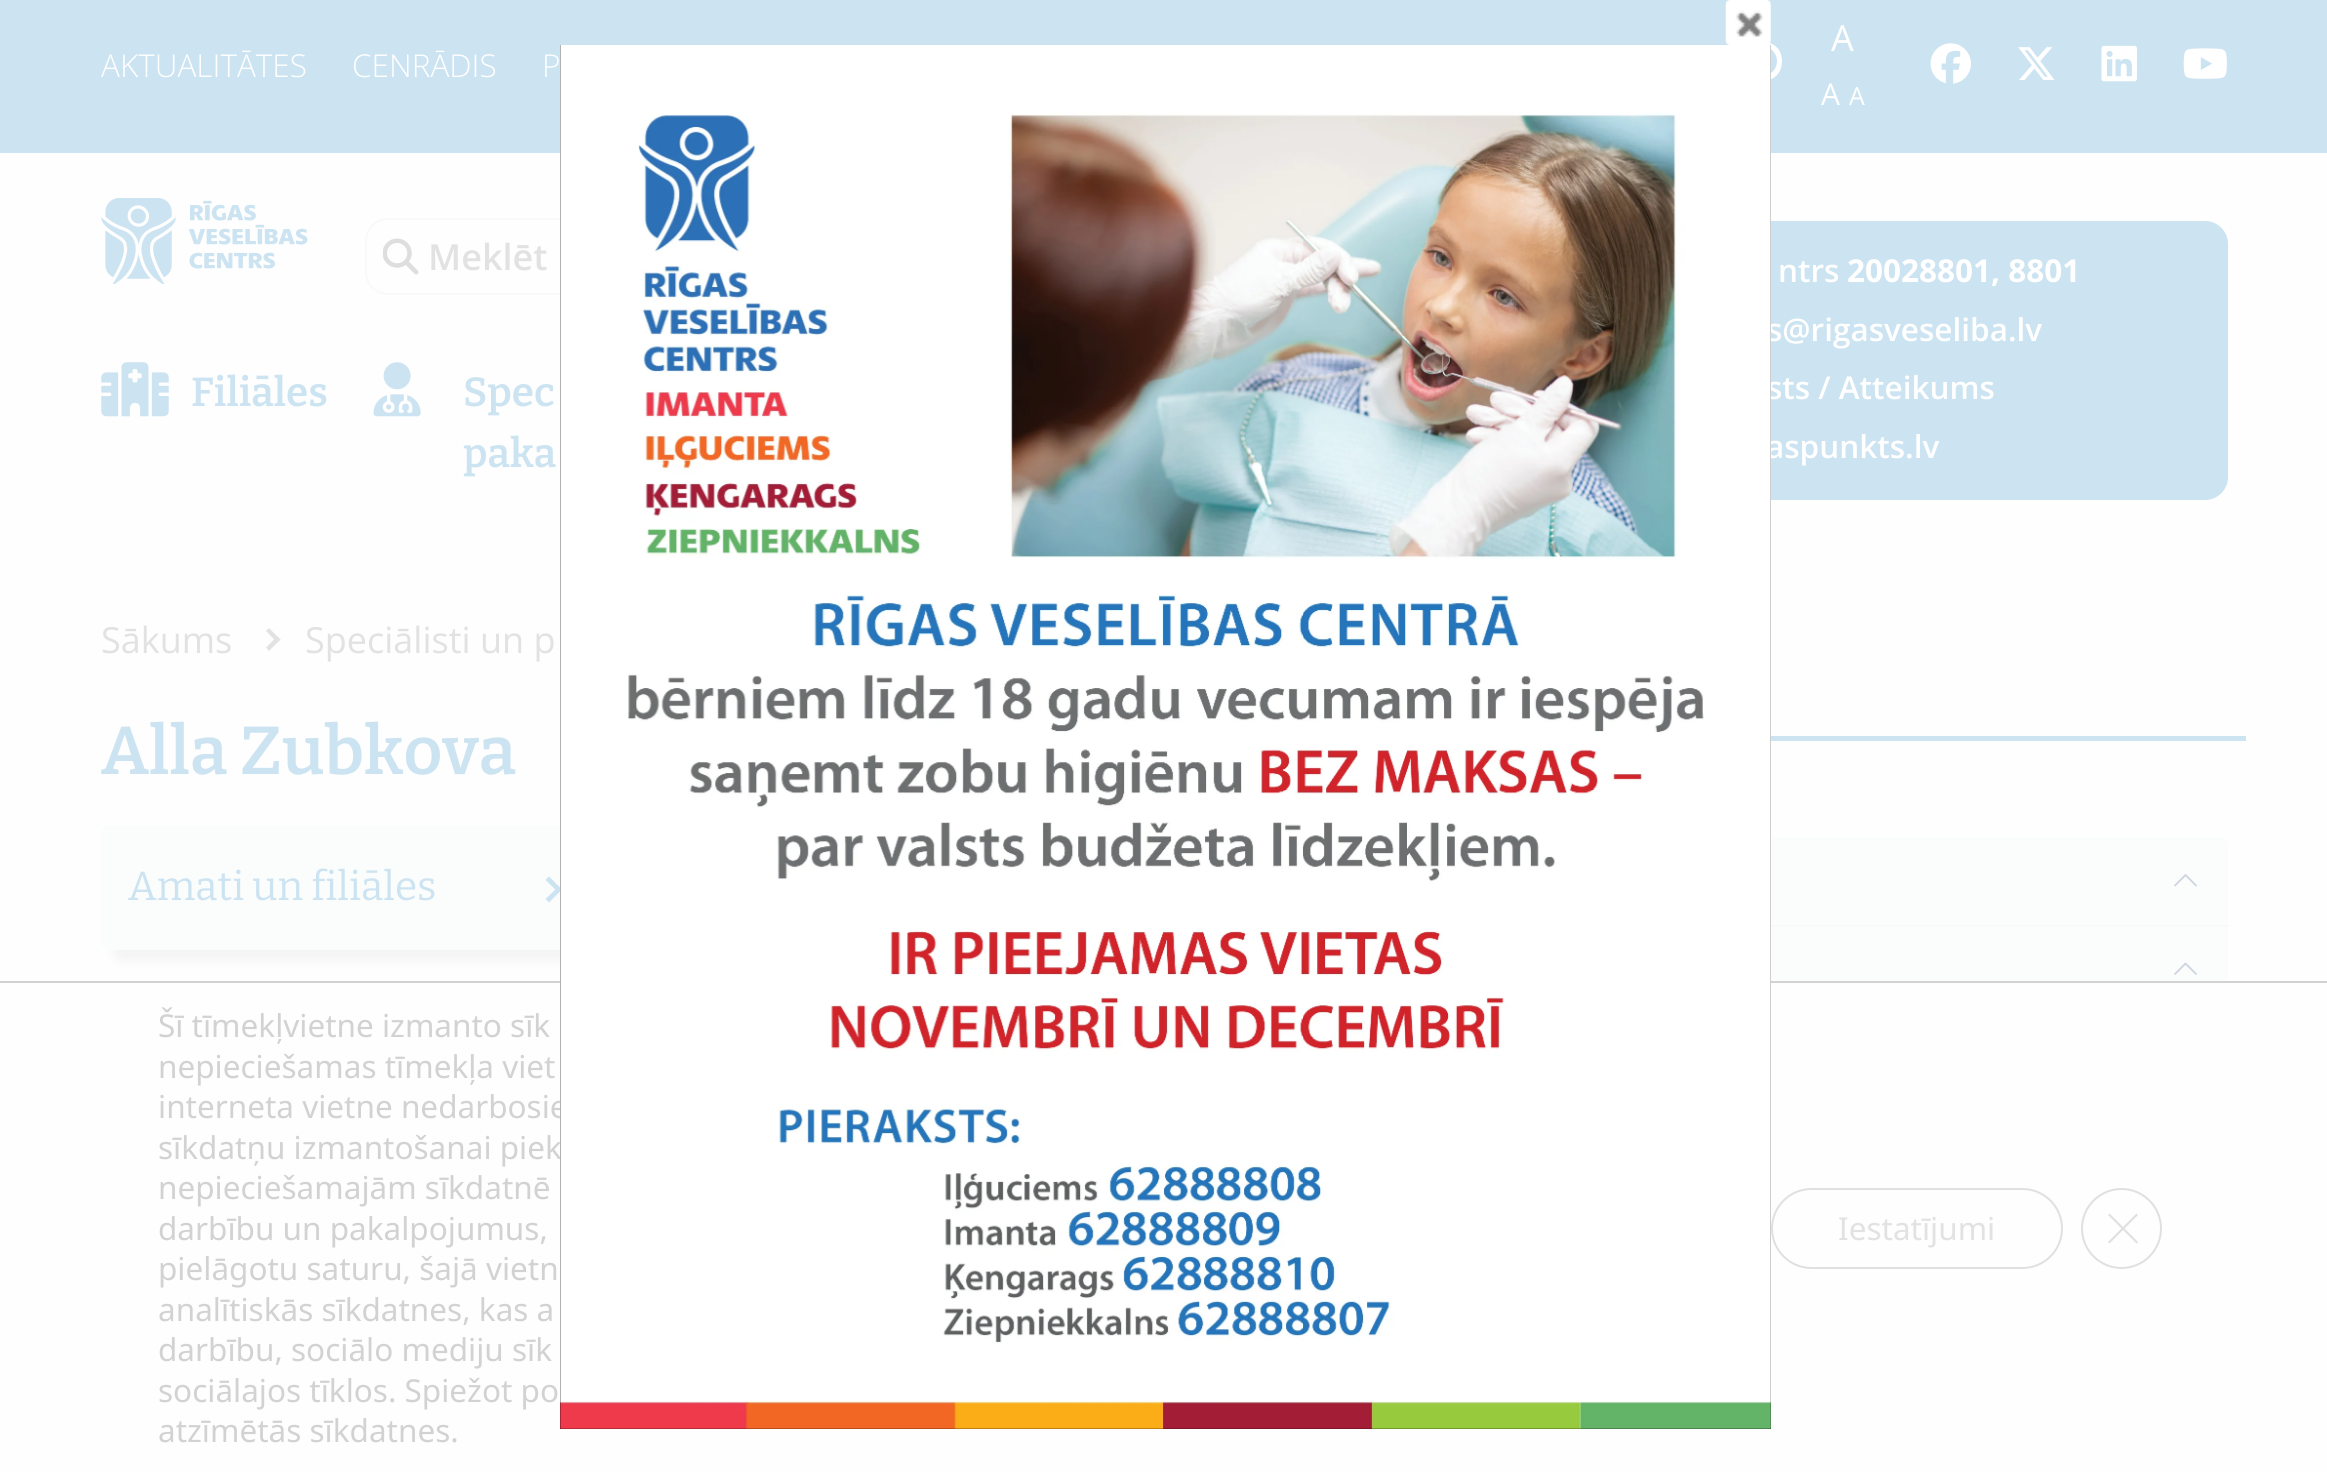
import math
import cairo

surface = cairo.ImageSurface(cairo.FORMAT_RGB24, 2327, 1472)
ctx = cairo.Context(surface)
options = cairo.FontOptions()
options.set_hint_metrics(cairo.HINT_METRICS_OFF)
options.set_hint_style(cairo.HINT_STYLE_NONE)
ctx.set_font_options(options)
ctx.set_miter_limit(4)


def round_rect(x, y, w, h, r):
    ctx.new_sub_path()
    for i, (u, v) in enumerate([(x + w - r, y + h - r), (x + r, y + h - r), (x + r, y + r), (x + w - r, y + r)]):
        ctx.arc(u, v, r, i * math.pi / 2, (i + 1) * math.pi / 2)
    ctx.close_path()


def shadow(x, y, w, h, r, blur, alpha):
    ctx.push_group_with_content(cairo.CONTENT_ALPHA)
    ctx.set_operator(cairo.OPERATOR_SOURCE)
    for i in range(15, -16, -2):
        e = blur * i / 6
        if min(w, h) + 2 * e > 0:
            ctx.set_source_rgba(0, 0, 0, alpha * math.erfc((i - 1) / 8.5) / 2)
            round_rect(x - e, y - e, w + 2 * e, h + 2 * e, max(0, min(r + e + blur * .6, min(w, h) / 2 + e)))
            ctx.fill()
    ctx.mask(ctx.pop_group())


def picture(path, x, y, w, h):
    ctx.save()
    ctx.set_source_surface(cairo.ImageSurface.create_from_png(path), x, y)
    ctx.rectangle(x, y, w, h)
    ctx.fill()
    ctx.restore()


ctx.set_source_rgb(0.996, 0.996, 0.996)
ctx.paint()
ctx.set_source_rgb(0.8, 0.89, 0.945)
ctx.rectangle(0, 0, 2327, 153)
ctx.fill()
ctx.set_source_rgb(1, 1, 1)
ctx.new_path()
ctx.move_to(1777, 61)
ctx.curve_to(1777, 53, 1770, 46, 1762, 46)
ctx.line_to(1762, 76)
ctx.curve_to(1770, 76, 1777, 70, 1777, 61)
ctx.close_path()
ctx.move_to(1742, 61)
ctx.curve_to(1742, 35, 1782, 35, 1782, 61)
ctx.curve_to(1782, 88, 1742, 88, 1742, 61)
ctx.close_path()
ctx.fill()
picture("img1.png", 1725, 0, 46, 45)
round_rect(366, 219, 1118, 75, 22)
ctx.set_source_rgb(0.973, 0.976, 0.98)
ctx.stroke()
ctx.set_source_rgb(0.8, 0.89, 0.945)
round_rect(1541, 221, 687, 279, 23)
ctx.fill()
ctx.select_font_face("Open Sans SemiBold")
ctx.set_font_size(31.5)
ctx.set_source_rgb(1, 1, 1)
ctx.move_to(1767, 341)
ctx.show_text("s@rigasveseliba.lv")
ctx.move_to(1767, 399)
ctx.show_text("sts / Atteikums")
ctx.move_to(1766, 458)
ctx.show_text("aspunkts.lv")
ctx.set_source_rgb(0.8, 0.8, 0.8)
shadow(113, 837, 483, 124, 9, 5.5, 0.2)
ctx.set_source_rgb(0.984, 0.988, 0.988)
round_rect(101, 826, 484, 124, 9)
ctx.fill()
ctx.set_source_rgb(0.8, 0.89, 0.945)
ctx.new_path()
ctx.move_to(549, 876.5)
ctx.line_to(562, 889.5)
ctx.line_to(558.5, 892.5)
ctx.line_to(545.5, 880)
ctx.close_path()
ctx.fill()
ctx.new_path()
ctx.move_to(558.5, 886.5)
ctx.line_to(562, 889.5)
ctx.line_to(549, 902.5)
ctx.line_to(545.5, 899)
ctx.close_path()
ctx.fill()
ctx.set_source_rgb(0.984, 0.988, 0.988)
ctx.new_path()
ctx.move_to(693, 837)
ctx.line_to(2221, 837)
ctx.curve_to(2225, 837, 2228, 840, 2228, 844)
ctx.line_to(2228, 927)
ctx.line_to(686, 927)
ctx.line_to(686, 844)
ctx.curve_to(686, 840, 689, 837, 693, 837)
ctx.close_path()
ctx.fill()
ctx.set_source_rgb(0.824, 0.824, 0.824)
ctx.rectangle(0, 981, 2327, 2)
ctx.fill()
ctx.select_font_face("Noto Sans")
ctx.move_to(158, 1118)
ctx.show_text("interneta vietne nedarbosie")
ctx.move_to(158, 1159)
ctx.show_text("sīkdatņu izmantošanai piek")
ctx.set_source_rgb(0, 0, 0)
ctx.rectangle(560, 45, 1211, 1384)
ctx.fill()
picture("img2.png", 560, 45, 1211, 1384)
ctx.select_font_face("Open Sans Light")
ctx.set_source_rgb(1, 1, 1)
ctx.move_to(101, 77)
ctx.show_text("AKTUALITĀTES")
ctx.move_to(352, 77)
ctx.show_text("CENRĀDIS")
ctx.move_to(542, 77)
ctx.show_text("P")
ctx.select_font_face("Open Sans")
ctx.set_font_size(36)
ctx.move_to(1831, 51)
ctx.show_text("A")
ctx.set_font_size(30)
ctx.move_to(1821, 105)
ctx.show_text("A")
ctx.set_font_size(25)
ctx.move_to(1849, 105)
ctx.show_text("A")
picture("img3.png", 1930, 43, 41, 41)
picture("img4.png", 2018, 47, 37, 33)
picture("img5.png", 2101, 45, 36, 37)
picture("img6.png", 2183, 48, 44, 31)
picture("img7.png", 101, 198, 207, 86)
picture("img8.png", 383, 238, 36, 37)
ctx.select_font_face("Open Sans SemiBold")
ctx.set_font_size(36)
ctx.set_source_rgb(0.886, 0.886, 0.886)
ctx.move_to(428, 270)
ctx.show_text("Meklēt")
picture("img9.png", 101, 362, 68, 55)
ctx.select_font_face("Bitter SemiBold")
ctx.set_font_size(40.5)
ctx.set_source_rgb(0.8, 0.89, 0.945)
ctx.move_to(191, 406)
ctx.show_text("Filiāles")
picture("img10.png", 373, 362, 48, 55)
ctx.move_to(463, 406)
ctx.show_text("Spec")
ctx.move_to(463, 467)
ctx.show_text("paka")
ctx.select_font_face("Open Sans SemiBold")
ctx.set_font_size(31.5)
ctx.set_source_rgb(1, 1, 1)
ctx.move_to(1778, 282)
ctx.show_text("ntrs")
ctx.select_font_face("Open Sans", cairo.FONT_SLANT_NORMAL, cairo.FONT_WEIGHT_BOLD)
ctx.move_to(1847, 282)
ctx.show_text("20028801, 8801")
ctx.select_font_face("Open Sans")
ctx.set_font_size(36)
ctx.set_source_rgb(0.886, 0.886, 0.886)
ctx.move_to(101, 653)
ctx.show_text("Sākums")
ctx.new_path()
ctx.move_to(269, 628)
ctx.line_to(280.5, 639.5)
ctx.line_to(277, 642.5)
ctx.line_to(266, 631)
ctx.close_path()
ctx.fill()
ctx.new_path()
ctx.move_to(277, 636.5)
ctx.line_to(280.5, 639.5)
ctx.line_to(269, 651)
ctx.line_to(266, 647.5)
ctx.close_path()
ctx.fill()
ctx.move_to(305, 653)
ctx.show_text("Speciālisti un p")
ctx.select_font_face("Bitter SemiBold")
ctx.set_font_size(67.5)
ctx.set_source_rgb(0.8, 0.89, 0.945)
ctx.move_to(101, 774)
ctx.show_text("Alla Zubkova")
ctx.select_font_face("Bitter")
ctx.set_font_size(40.5)
ctx.move_to(128, 900)
ctx.show_text("Amati un filiāles")
ctx.rectangle(1771, 736, 475, 5)
ctx.fill()
ctx.set_source_rgb(0.973, 0.976, 0.98)
ctx.rectangle(1771, 925, 457, 2)
ctx.fill()
ctx.new_path()
ctx.move_to(2196, 885.5)
ctx.line_to(2185.5, 875)
ctx.line_to(2175, 885.5)
ctx.set_source_rgb(0.804, 0.835, 0.878)
ctx.set_line_width(1.8)
ctx.set_line_cap(cairo.LINE_CAP_ROUND)
ctx.set_line_join(cairo.LINE_JOIN_ROUND)
ctx.stroke()
ctx.set_source_rgb(0.984, 0.988, 0.988)
ctx.rectangle(1771, 927, 457, 54)
ctx.fill()
ctx.new_path()
ctx.move_to(2196, 974)
ctx.line_to(2185.5, 963.5)
ctx.line_to(2175, 974)
ctx.set_source_rgb(0.804, 0.835, 0.878)
ctx.stroke()
ctx.select_font_face("Noto Sans")
ctx.set_font_size(31.5)
ctx.set_source_rgb(0.824, 0.824, 0.824)
ctx.move_to(158, 1037)
ctx.show_text("Šī tīmekļvietne izmanto sīk")
ctx.move_to(158, 1078)
ctx.show_text("nepieciešamas tīmekļa viet")
ctx.move_to(158, 1199)
ctx.show_text("nepieciešamajām sīkdatnē")
ctx.move_to(158, 1240)
ctx.show_text("darbību un pakalpojumus,")
ctx.move_to(158, 1280)
ctx.show_text("pielāgotu saturu, šajā vietn")
ctx.move_to(158, 1321)
ctx.show_text("analītiskās sīkdatnes, kas a")
ctx.move_to(158, 1361)
ctx.show_text("darbību, sociālo mediju sīk")
ctx.move_to(158, 1402)
ctx.show_text("sociālajos tīklos. Spiežot po")
ctx.move_to(158, 1442)
ctx.show_text("atzīmētās sīkdatnes.")
round_rect(1772, 1189, 290, 79, 39.5)
ctx.set_source_rgb(0.878, 0.878, 0.878)
ctx.set_line_width(2)
ctx.set_line_cap(cairo.LINE_CAP_BUTT)
ctx.set_line_join(cairo.LINE_JOIN_MITER)
ctx.stroke()
ctx.set_source_rgb(0.886, 0.886, 0.886)
ctx.move_to(1838, 1240)
ctx.show_text("Iestatījumi")
ctx.new_path()
ctx.arc(2121.5, 1228.5, 39.5, 0, 2 * math.pi)
ctx.set_source_rgb(0.878, 0.878, 0.878)
ctx.stroke()
ctx.new_path()
ctx.move_to(2136.5, 1213.5)
ctx.line_to(2138, 1215)
ctx.line_to(2109.5, 1243.5)
ctx.line_to(2108, 1242)
ctx.close_path()
ctx.fill()
ctx.new_path()
ctx.move_to(2108, 1215)
ctx.line_to(2109.5, 1213.5)
ctx.line_to(2138, 1242)
ctx.line_to(2136.5, 1243.5)
ctx.close_path()
ctx.fill()
surface.write_to_png("page.png")
